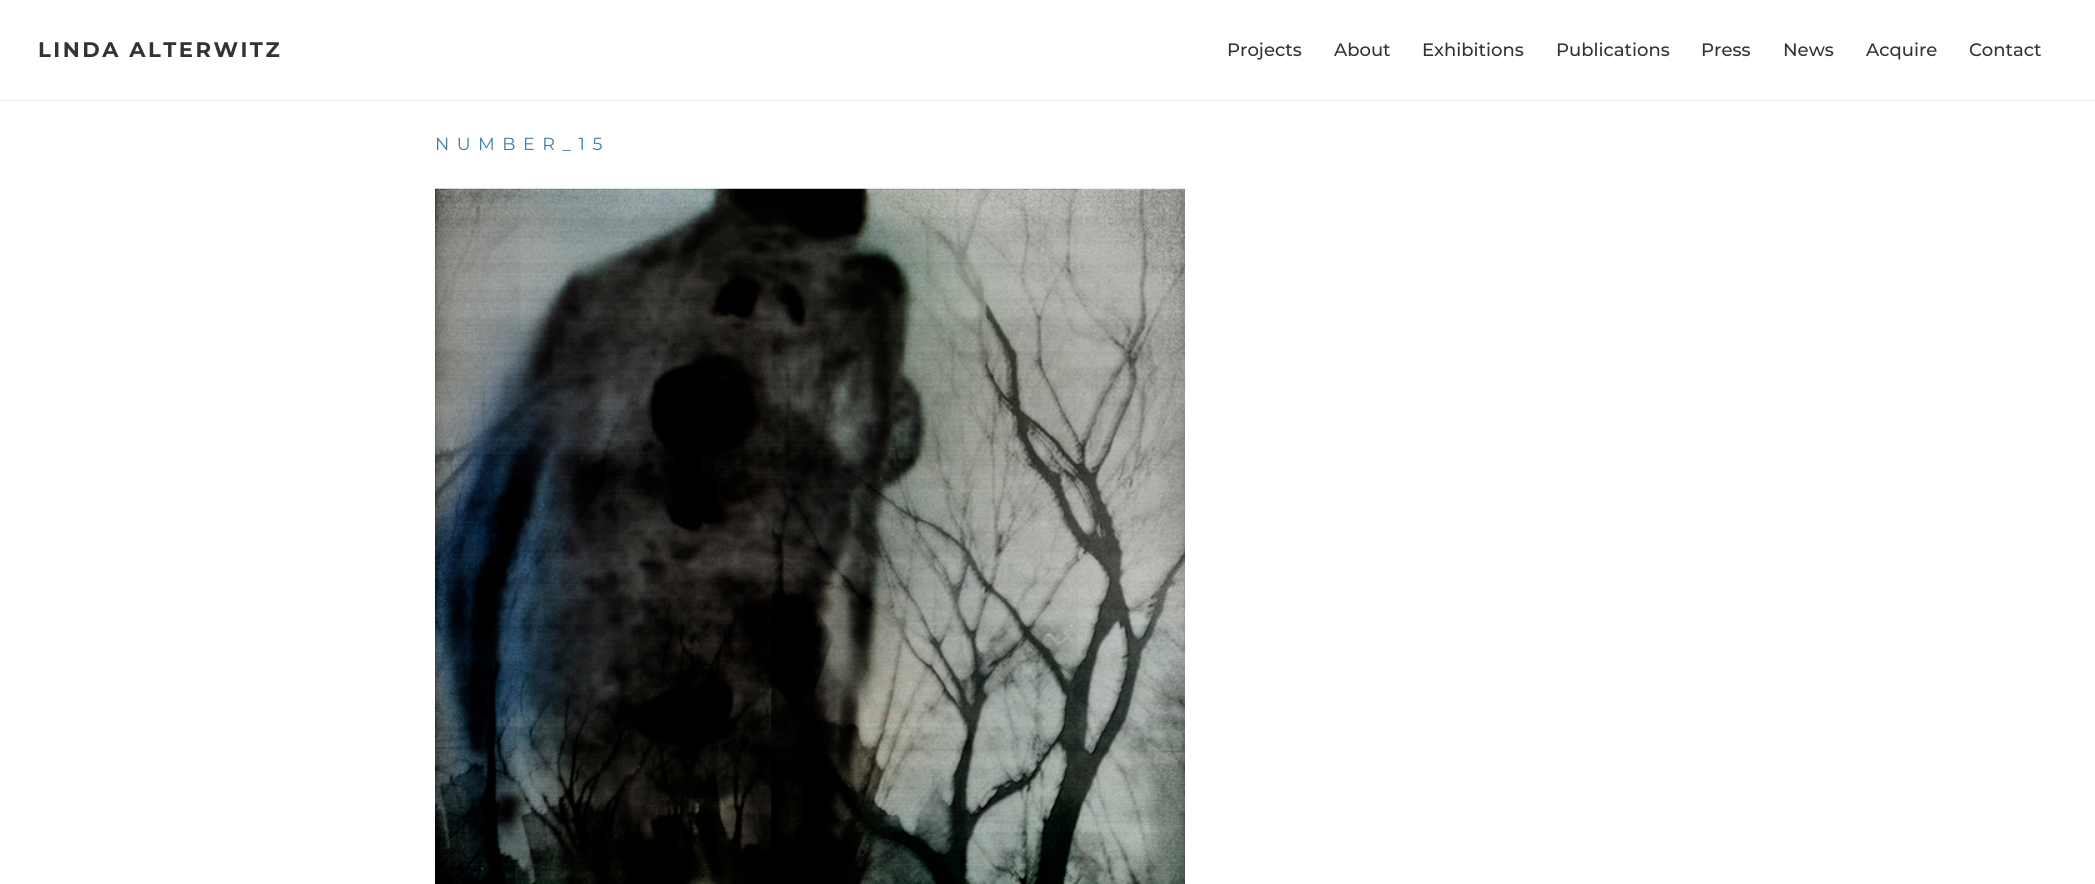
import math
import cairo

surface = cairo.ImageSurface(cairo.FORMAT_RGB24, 2095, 884)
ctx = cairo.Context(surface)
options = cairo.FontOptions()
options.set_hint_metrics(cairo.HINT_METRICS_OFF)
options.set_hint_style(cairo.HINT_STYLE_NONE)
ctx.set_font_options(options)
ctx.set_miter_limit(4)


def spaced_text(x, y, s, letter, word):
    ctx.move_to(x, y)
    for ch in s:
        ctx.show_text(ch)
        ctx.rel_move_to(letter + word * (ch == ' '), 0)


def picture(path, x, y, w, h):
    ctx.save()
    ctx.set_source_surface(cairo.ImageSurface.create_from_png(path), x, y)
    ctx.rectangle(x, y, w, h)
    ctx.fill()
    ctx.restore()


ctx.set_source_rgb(1, 1, 1)
ctx.paint()
ctx.select_font_face("Montserrat", cairo.FONT_SLANT_NORMAL, cairo.FONT_WEIGHT_BOLD)
ctx.set_font_size(21.1)
ctx.set_source_rgb(0.2, 0.2, 0.2)
spaced_text(38, 57, "LINDA ALTERWITZ", 2.5, 0)
ctx.select_font_face("Montserrat Medium")
ctx.set_font_size(18)
ctx.move_to(1227, 56)
ctx.show_text("Projects")
ctx.move_to(1334, 56)
ctx.show_text("About")
ctx.move_to(1422, 56)
ctx.show_text("Exhibitions")
ctx.move_to(1556, 56)
ctx.show_text("Publications")
ctx.move_to(1701, 56)
ctx.show_text("Press")
ctx.move_to(1783, 56)
ctx.show_text("News")
ctx.move_to(1866, 56)
ctx.show_text("Acquire")
ctx.move_to(1969, 56)
ctx.show_text("Contact")
ctx.set_source_rgb(0.91, 0.933, 0.957)
ctx.rectangle(0, 100, 2095, 1)
ctx.fill()
ctx.select_font_face("Montserrat")
ctx.set_font_size(17.5)
ctx.set_source_rgb(0.243, 0.486, 0.655)
spaced_text(435, 150, "NUMBER_15", 7.5, 0)
picture("img1.png", 435, 188, 750, 696)
surface.write_to_png("page.png")
